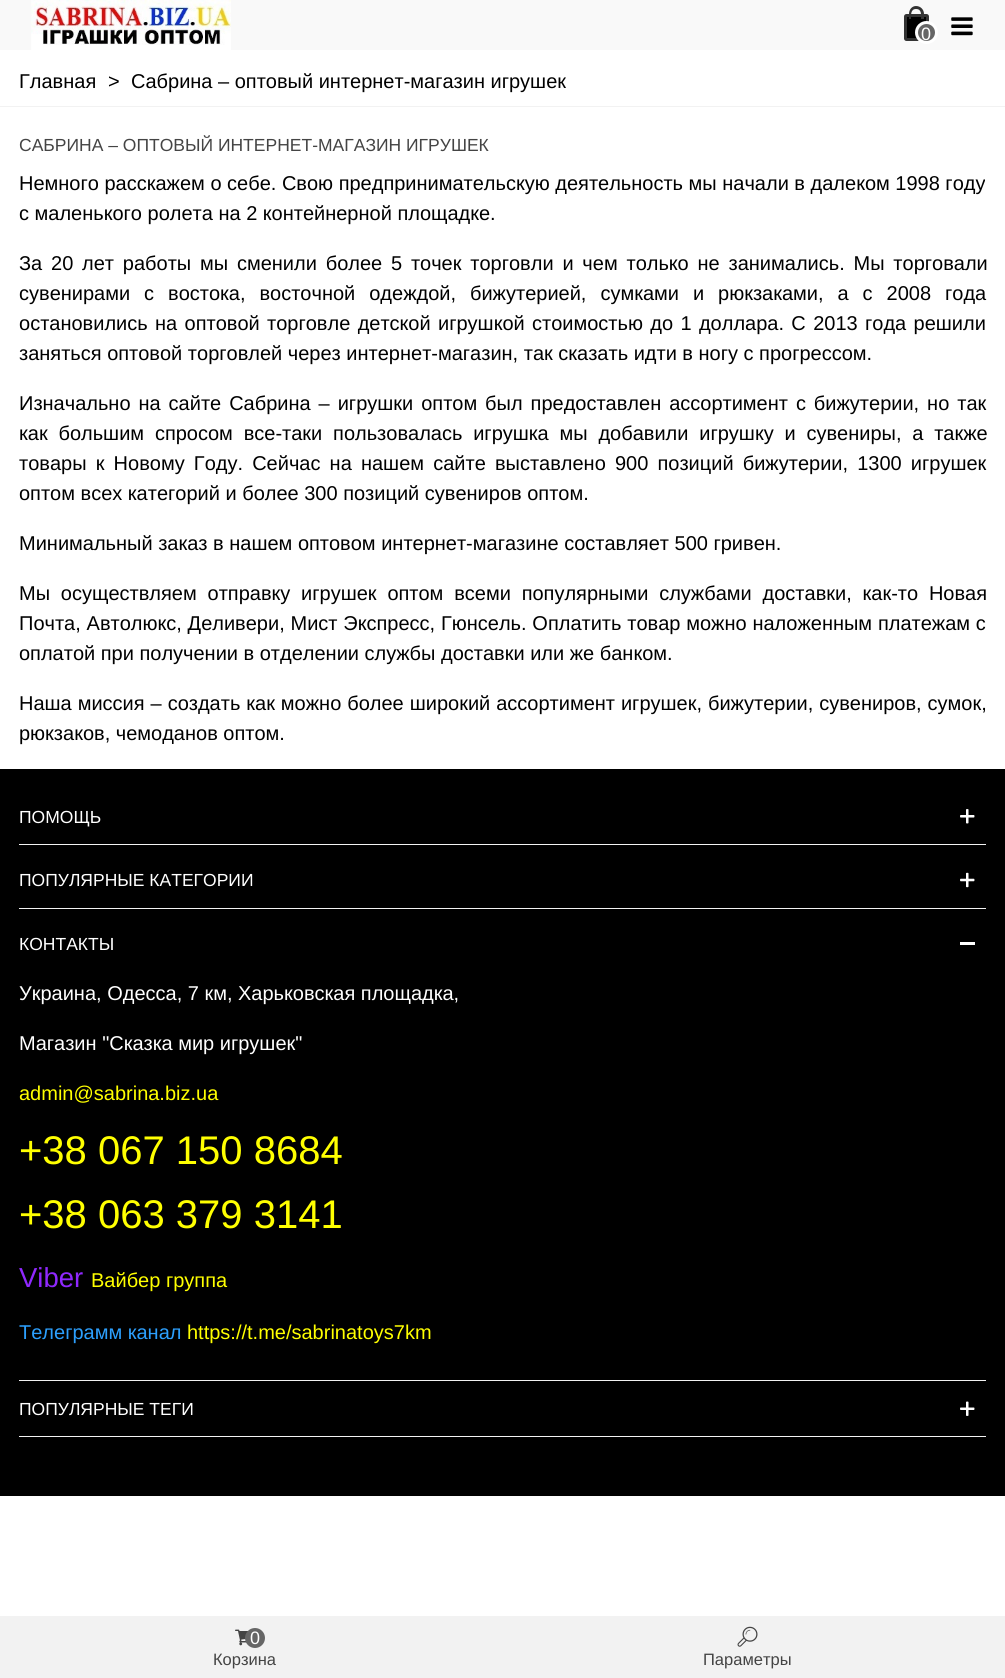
import math
import cairo

surface = cairo.ImageSurface(cairo.FORMAT_RGB24, 1005, 1678)
ctx = cairo.Context(surface)
options = cairo.FontOptions()
options.set_hint_metrics(cairo.HINT_METRICS_OFF)
options.set_hint_style(cairo.HINT_STYLE_NONE)
ctx.set_font_options(options)
ctx.set_miter_limit(4)


def spaced_text(x, y, s, letter, word):
    ctx.move_to(x, y)
    for ch in s:
        ctx.show_text(ch)
        ctx.rel_move_to(letter + word * (ch == ' '), 0)


def round_rect(x, y, w, h, r):
    ctx.new_sub_path()
    for i, (u, v) in enumerate([(x + w - r, y + h - r), (x + r, y + h - r), (x + r, y + r), (x + w - r, y + r)]):
        ctx.arc(u, v, r, i * math.pi / 2, (i + 1) * math.pi / 2)
    ctx.close_path()


def picture(path, x, y, w, h):
    ctx.save()
    ctx.set_source_surface(cairo.ImageSurface.create_from_png(path), x, y)
    ctx.rectangle(x, y, w, h)
    ctx.fill()
    ctx.restore()


ctx.set_source_rgb(1, 1, 1)
ctx.paint()
ctx.set_source_rgb(0.976, 0.976, 0.976)
ctx.rectangle(0, 0, 1005, 50)
ctx.fill()
picture("img1.png", 31, 0, 200, 50)
ctx.set_source_rgb(0, 0, 0)
round_rect(905.5, 15.5, 22, 24, 1)
ctx.fill_preserve()
ctx.set_source_rgb(0.2, 0.2, 0.2)
ctx.set_line_width(3)
ctx.stroke()
ctx.set_fill_rule(cairo.FILL_RULE_EVEN_ODD)
ctx.new_path()
ctx.move_to(916, 6)
ctx.curve_to(920.5, 6, 924, 9.5, 924, 14)
ctx.line_to(924, 19)
ctx.line_to(909, 19)
ctx.line_to(909, 14)
ctx.curve_to(909, 9.5, 912, 6, 916, 6)
ctx.close_path()
ctx.move_to(916, 9)
ctx.curve_to(922, 9, 921, 15, 921, 19)
ctx.line_to(911, 19)
ctx.curve_to(911, 15, 910.5, 9, 916, 9)
ctx.close_path()
ctx.fill()
ctx.set_source_rgb(0.4, 0.4, 0.4)
ctx.arc(926.5, 32.5, 10, 0, 2 * math.pi)
ctx.fill_preserve()
ctx.set_source_rgb(1, 1, 1)
ctx.stroke()
ctx.select_font_face("Liberation Sans")
ctx.set_font_size(18)
ctx.move_to(921, 40)
ctx.show_text("0")
picture("img2.png", 951, 17, 22, 19)
ctx.set_source_rgb(0.949, 0.949, 0.949)
ctx.rectangle(0, 106, 1005, 1)
ctx.fill()
ctx.set_font_size(20)
ctx.set_source_rgb(0, 0, 0)
ctx.move_to(19, 88)
ctx.show_text("Главная")
ctx.move_to(108, 88)
ctx.show_text(">")
ctx.move_to(131, 88)
ctx.show_text("Сабрина – оптовый интернет-магазин игрушек")
ctx.set_font_size(17.5)
ctx.set_source_rgb(0.267, 0.267, 0.267)
ctx.move_to(19, 151)
ctx.show_text("САБРИНА – ОПТОВЫЙ ИНТЕРНЕТ-МАГАЗИН ИГРУШЕК")
ctx.set_font_size(20)
ctx.set_source_rgb(0, 0, 0)
ctx.move_to(19, 190)
ctx.show_text("Немного расскажем о себе. Свою предпринимательскую деятельность мы начали в далеком 1998 году")
ctx.move_to(19, 220)
ctx.show_text("с маленького ролета на 2 контейнерной площадке.")
spaced_text(19, 270, "За 20 лет работы мы сменили более 5 точек торговли и чем только не занимались. Мы торговали", 0, 3.25)
spaced_text(19, 300, "сувенирами с востока, восточной одеждой, бижутерией, сумками и рюкзаками, а с 2008 года", 0, 8.4)
spaced_text(19, 330, "остановились на оптовой торговле детской игрушкой стоимостью до 1 доллара. С 2013 года решили", 0, 1.8)
ctx.move_to(19, 360)
ctx.show_text("заняться оптовой торговлей через интернет-магазин, так сказать идти в ногу с прогрессом.")
spaced_text(19, 410, "Изначально на сайте Сабрина – игрушки оптом был предоставлен ассортимент с бижутерии, но так", 0, 2.4)
spaced_text(19, 440, "как большим спросом все-таки пользовалась игрушка мы добавили игрушку и сувениры, а также", 0, 5.25)
spaced_text(19, 470, "товары к Новому Году. Сейчас на нашем сайте выставлено 900 позиций бижутерии, 1300 игрушек", 0, 3.6)
ctx.move_to(19, 500)
ctx.show_text("оптом всех категорий и более 300 позиций сувениров оптом.")
ctx.move_to(19, 550)
ctx.show_text("Минимальный заказ в нашем оптовом интернет-магазине составляет 500 гривен.")
spaced_text(19, 600, "Мы осуществляем отправку игрушек оптом всеми популярными службами доставки, как-то Новая", 0, 5.25)
spaced_text(19, 630, "Почта, Автолюкс, Деливери, Мист Экспресс, Гюнсель. Оплатить товар можно наложенным платежам с", 0, 0.25)
ctx.move_to(19, 660)
ctx.show_text("оплатой при получении в отделении службы доставки или же банком.")
spaced_text(19, 710, "Наша миссия – создать как можно более широкий ассортимент игрушек, бижутерии, сувениров, сумок,", 0, 0.4)
ctx.move_to(19, 740)
ctx.show_text("рюкзаков, чемоданов оптом.")
ctx.rectangle(0, 769, 1005, 727)
ctx.fill()
ctx.set_source_rgb(0.949, 0.949, 0.949)
ctx.rectangle(19, 844, 967, 1)
ctx.fill()
ctx.set_font_size(17.5)
ctx.set_source_rgb(1, 1, 1)
ctx.move_to(19, 823)
ctx.show_text("ПОМОЩЬ")
picture("img3.png", 960, 809, 15, 15)
ctx.set_source_rgb(0.949, 0.949, 0.949)
ctx.rectangle(19, 908, 967, 1)
ctx.fill()
ctx.set_source_rgb(1, 1, 1)
ctx.move_to(19, 886)
ctx.show_text("ПОПУЛЯРНЫЕ КАТЕГОРИИ")
picture("img4.png", 960, 872, 15, 16)
ctx.move_to(19, 950)
ctx.show_text("КОНТАКТЫ")
ctx.rectangle(960, 942, 15, 3)
ctx.fill()
ctx.set_source_rgb(0.949, 0.949, 0.949)
ctx.rectangle(19, 1380, 967, 1)
ctx.fill()
ctx.set_font_size(20)
ctx.set_source_rgb(1, 1, 1)
ctx.move_to(19, 1000)
ctx.show_text("Украина, Одесса, 7 км, Харьковская площадка,")
ctx.move_to(19, 1050)
ctx.show_text("Магазин \"Сказка мир игрушек\"")
ctx.set_source_rgb(1, 1, 0)
ctx.move_to(19, 1100)
ctx.show_text("admin@sabrina.biz.ua")
ctx.set_font_size(40)
ctx.move_to(19, 1164)
ctx.show_text("+38 067 150 8684")
ctx.move_to(19, 1228)
ctx.show_text("+38 063 379 3141")
ctx.set_font_size(27.5)
ctx.set_source_rgb(0.561, 0.157, 0.996)
ctx.move_to(19, 1287)
ctx.show_text("Viber")
ctx.set_font_size(20)
ctx.set_source_rgb(1, 1, 0)
ctx.move_to(91, 1287)
ctx.show_text("Вайбер группа")
ctx.set_source_rgb(0.173, 0.624, 0.992)
ctx.move_to(19, 1339)
ctx.show_text("Телеграмм канал")
ctx.set_source_rgb(1, 1, 0)
ctx.move_to(187, 1339)
ctx.show_text("https://t.me/sabrinatoys7km")
ctx.set_source_rgb(0.949, 0.949, 0.949)
ctx.rectangle(19, 1436, 967, 1)
ctx.fill()
ctx.set_font_size(17.5)
ctx.set_source_rgb(1, 1, 1)
ctx.move_to(19, 1415)
ctx.show_text("ПОПУЛЯРНЫЕ ТЕГИ")
picture("img5.png", 960, 1401, 15, 15)
ctx.set_source_rgb(0.949, 0.949, 0.949)
ctx.rectangle(0, 1616, 1005, 62)
ctx.fill()
picture("img6.png", 235, 1629, 13, 17)
ctx.set_source_rgb(0.4, 0.4, 0.4)
ctx.arc(255, 1638, 10, 0, 2 * math.pi)
ctx.fill()
ctx.set_font_size(18)
ctx.set_source_rgb(1, 1, 1)
ctx.move_to(250, 1644)
ctx.show_text("0")
ctx.set_font_size(16.5)
ctx.set_source_rgb(0.267, 0.267, 0.267)
ctx.move_to(213, 1665)
ctx.show_text("Корзина")
picture("img7.png", 737, 1626, 21, 21)
ctx.move_to(703, 1665)
ctx.show_text("Параметры")
surface.write_to_png("page.png")
